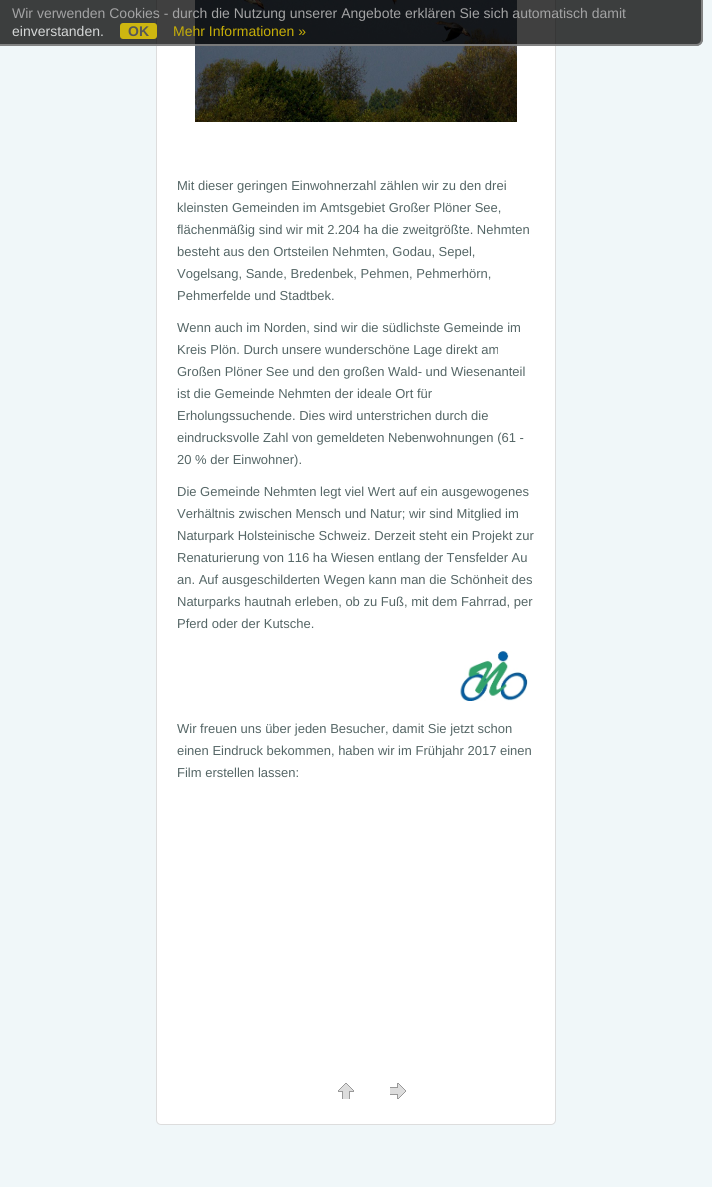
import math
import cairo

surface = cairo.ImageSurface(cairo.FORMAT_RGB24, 712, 1187)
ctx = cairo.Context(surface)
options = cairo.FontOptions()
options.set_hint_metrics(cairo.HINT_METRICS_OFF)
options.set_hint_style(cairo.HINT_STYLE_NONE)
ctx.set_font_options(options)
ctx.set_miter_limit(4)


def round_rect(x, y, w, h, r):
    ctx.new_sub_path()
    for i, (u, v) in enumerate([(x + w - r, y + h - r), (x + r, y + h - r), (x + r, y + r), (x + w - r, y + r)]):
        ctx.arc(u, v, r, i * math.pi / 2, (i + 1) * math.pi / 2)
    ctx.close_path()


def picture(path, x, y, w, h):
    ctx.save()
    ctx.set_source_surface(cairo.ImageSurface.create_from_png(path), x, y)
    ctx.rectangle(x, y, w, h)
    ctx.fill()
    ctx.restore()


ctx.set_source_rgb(0.941, 0.965, 0.976)
ctx.paint()
ctx.set_source_rgb(1, 1, 1)
round_rect(156.5, -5.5, 399, 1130, 4.5)
ctx.fill_preserve()
ctx.set_source_rgb(0.867, 0.867, 0.867)
ctx.set_line_width(1)
ctx.stroke()
picture("img1.png", 195, 0, 322, 122)
ctx.set_source_rgba(0, 0, 0, 0.75)
ctx.new_path()
ctx.move_to(0, 0)
ctx.line_to(703, 0)
ctx.line_to(703, 39)
ctx.curve_to(703, 43, 700, 46, 696, 46)
ctx.line_to(0, 46)
ctx.close_path()
ctx.fill()
ctx.set_source_rgba(0.6, 0.6, 0.6, 0.75)
ctx.set_fill_rule(cairo.FILL_RULE_EVEN_ODD)
ctx.new_path()
ctx.move_to(0, 0)
ctx.line_to(703, 0)
ctx.line_to(703, 39)
ctx.curve_to(703, 43, 700, 46, 696, 46)
ctx.line_to(0, 46)
ctx.close_path()
ctx.move_to(0, 0)
ctx.line_to(701, 0)
ctx.line_to(701, 39)
ctx.curve_to(701, 42, 699, 44, 696, 44)
ctx.line_to(0, 44)
ctx.close_path()
ctx.fill()
ctx.select_font_face("Liberation Sans")
ctx.set_font_size(14)
ctx.set_source_rgb(0.639, 0.639, 0.643)
ctx.move_to(12, 18)
ctx.show_text("Wir verwenden Cookies - durch die Nutzung unserer Angebote erklären Sie sich automatisch damit")
ctx.set_source_rgb(0.835, 0.843, 0.843)
ctx.move_to(12, 36)
ctx.show_text("einverstanden.")
ctx.set_source_rgba(1, 0.867, 0, 0.75)
round_rect(120, 23, 37, 16, 3)
ctx.fill()
ctx.select_font_face("Liberation Sans", cairo.FONT_SLANT_NORMAL, cairo.FONT_WEIGHT_BOLD)
ctx.set_source_rgb(0.337, 0.341, 0.345)
ctx.move_to(128, 36)
ctx.show_text("OK")
ctx.select_font_face("Liberation Sans")
ctx.set_source_rgb(0.776, 0.682, 0.035)
ctx.move_to(173, 36)
ctx.show_text("Mehr Informationen »")
ctx.set_font_size(13)
ctx.set_source_rgb(0.333, 0.4, 0.4)
ctx.move_to(177, 190)
ctx.show_text("Mit dieser geringen Einwohnerzahl zählen wir zu den drei")
ctx.move_to(177, 212)
ctx.show_text("kleinsten Gemeinden im Amtsgebiet Großer Plöner See,")
ctx.move_to(177, 234)
ctx.show_text("flächenmäßig sind wir mit 2.204 ha die zweitgrößte. Nehmten")
ctx.move_to(177, 256)
ctx.show_text("besteht aus den Ortsteilen Nehmten, Godau, Sepel,")
ctx.move_to(177, 278)
ctx.show_text("Vogelsang, Sande, Bredenbek, Pehmen, Pehmerhörn,")
ctx.move_to(177, 300)
ctx.show_text("Pehmerfelde und Stadtbek.")
ctx.move_to(177, 332)
ctx.show_text("Wenn auch im Norden, sind wir die südlichste Gemeinde im")
ctx.move_to(177, 354)
ctx.show_text("Kreis Plön. Durch unsere wunderschöne Lage direkt am")
ctx.move_to(177, 376)
ctx.show_text("Großen Plöner See und den großen Wald- und Wiesenanteil")
ctx.move_to(177, 398)
ctx.show_text("ist die Gemeinde Nehmten der ideale Ort für")
ctx.move_to(177, 420)
ctx.show_text("Erholungssuchende. Dies wird unterstrichen durch die")
ctx.move_to(177, 442)
ctx.show_text("eindrucksvolle Zahl von gemeldeten Nebenwohnungen (61 -")
ctx.move_to(177, 464)
ctx.show_text("20 % der Einwohner).")
ctx.move_to(177, 496)
ctx.show_text("Die Gemeinde Nehmten legt viel Wert auf ein ausgewogenes")
ctx.move_to(177, 518)
ctx.show_text("Verhältnis zwischen Mensch und Natur; wir sind Mitglied im")
ctx.move_to(177, 540)
ctx.show_text("Naturpark Holsteinische Schweiz. Derzeit steht ein Projekt zur")
ctx.move_to(177, 562)
ctx.show_text("Renaturierung von 116 ha Wiesen entlang der Tensfelder Au")
ctx.move_to(177, 584)
ctx.show_text("an. Auf ausgeschilderten Wegen kann man die Schönheit des")
ctx.move_to(177, 606)
ctx.show_text("Naturparks hautnah erleben, ob zu Fuß, mit dem Fahrrad, per")
ctx.move_to(177, 628)
ctx.show_text("Pferd oder der Kutsche.")
picture("img2.png", 460, 650, 68, 51)
ctx.move_to(177, 733)
ctx.show_text("Wir freuen uns über jeden Besucher, damit Sie jetzt schon")
ctx.move_to(177, 755)
ctx.show_text("einen Eindruck bekommen, haben wir im Frühjahr 2017 einen")
ctx.move_to(177, 777)
ctx.show_text("Film erstellen lassen:")
picture("img3.png", 338, 1083, 16, 16)
picture("img4.png", 390, 1083, 16, 16)
surface.write_to_png("page.png")
